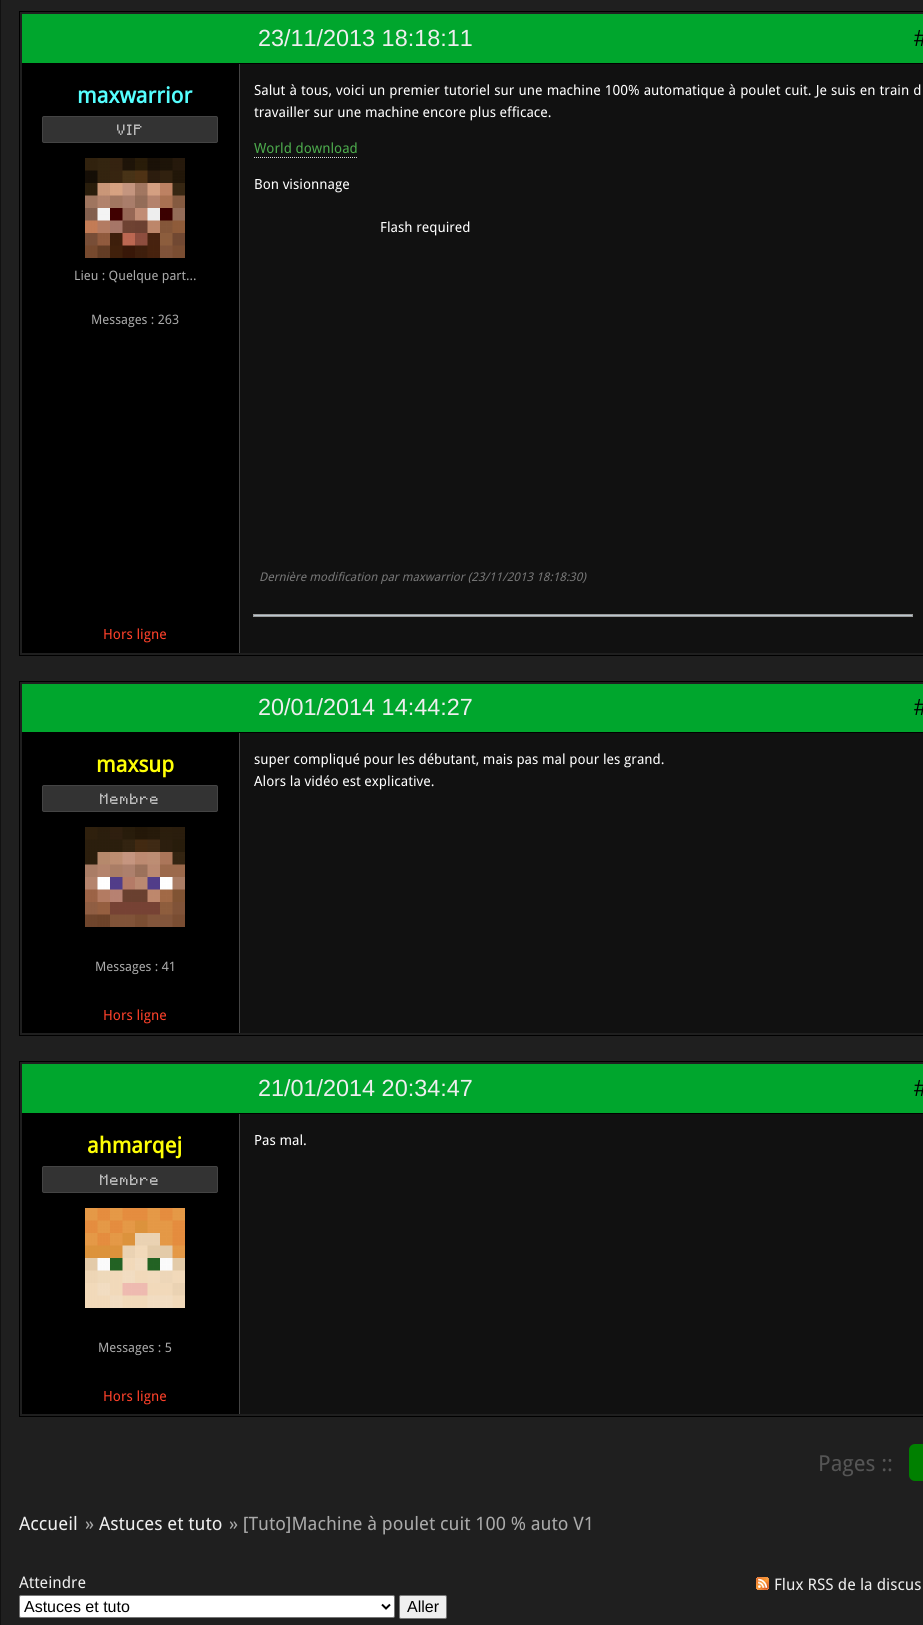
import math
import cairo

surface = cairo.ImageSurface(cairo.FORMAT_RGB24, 923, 1625)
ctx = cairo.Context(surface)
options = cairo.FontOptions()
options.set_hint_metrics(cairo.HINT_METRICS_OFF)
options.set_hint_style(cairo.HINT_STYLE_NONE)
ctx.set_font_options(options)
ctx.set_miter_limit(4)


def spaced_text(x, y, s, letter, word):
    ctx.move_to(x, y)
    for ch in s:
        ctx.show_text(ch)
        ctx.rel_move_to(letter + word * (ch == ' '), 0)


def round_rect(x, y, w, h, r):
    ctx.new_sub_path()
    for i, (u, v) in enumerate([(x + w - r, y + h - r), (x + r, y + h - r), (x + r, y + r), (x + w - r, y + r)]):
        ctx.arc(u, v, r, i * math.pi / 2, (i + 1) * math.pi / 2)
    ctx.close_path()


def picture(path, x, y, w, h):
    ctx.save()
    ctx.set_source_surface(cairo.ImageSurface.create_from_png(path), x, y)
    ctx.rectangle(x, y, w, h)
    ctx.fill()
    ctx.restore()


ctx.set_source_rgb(0.122, 0.122, 0.122)
ctx.paint()
ctx.rectangle(0.5, -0.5, 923, 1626)
ctx.set_source_rgb(0.067, 0.067, 0.067)
ctx.set_line_width(1)
ctx.stroke()
ctx.rectangle(19.5, 11.5, 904, 644)
ctx.set_source_rgb(0, 0, 0)
ctx.stroke()
ctx.set_source_rgb(0, 0.651, 0.176)
ctx.rectangle(22, 14, 901, 49)
ctx.fill()
ctx.set_source_rgb(0, 0, 0)
ctx.rectangle(22, 63, 901, 1)
ctx.fill()
ctx.select_font_face("Liberation Sans")
ctx.set_font_size(23.4)
ctx.set_source_rgb(0.933, 0.933, 0.933)
ctx.move_to(258, 46)
ctx.show_text("23/11/2013 18:18:11")
ctx.set_source_rgb(0, 0, 0)
ctx.move_to(914, 46)
ctx.show_text("#")
ctx.rectangle(22, 64, 217, 589)
ctx.fill()
ctx.set_source_rgb(0.067, 0.067, 0.067)
ctx.rectangle(240, 64, 683, 589)
ctx.fill()
ctx.set_source_rgb(0.267, 0.267, 0.267)
ctx.rectangle(239, 64, 1, 589)
ctx.fill()
ctx.select_font_face("Droid Sans", cairo.FONT_SLANT_NORMAL, cairo.FONT_WEIGHT_BOLD)
ctx.set_font_size(22)
ctx.set_source_rgb(0.333, 1, 1)
ctx.move_to(77, 103)
ctx.show_text("maxwarrior")
ctx.set_source_rgb(0.2, 0.2, 0.2)
round_rect(42.5, 116.5, 175, 26, 1.5)
ctx.fill_preserve()
ctx.set_source_rgb(0.267, 0.267, 0.267)
ctx.stroke()
ctx.select_font_face("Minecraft")
ctx.set_font_size(12)
ctx.set_source_rgb(0.733, 0.733, 0.733)
spaced_text(117, 135, "VIP", 1, 0)
picture("img1.png", 85, 158, 100, 100)
ctx.select_font_face("Droid Sans")
ctx.set_font_size(13)
ctx.set_source_rgb(0.667, 0.667, 0.667)
ctx.move_to(74, 280)
ctx.show_text("Lieu : Quelque part...")
ctx.move_to(91, 324)
ctx.show_text("Messages : 263")
ctx.set_font_size(14)
ctx.set_source_rgb(1, 1, 1)
spaced_text(254, 95, "Salut à tous, voici un premier tutoriel sur une machine 100% automatique à poulet cuit. Je suis en train d", 0, 0.5)
ctx.move_to(254, 117)
ctx.show_text("travailler sur une machine encore plus efficace.")
ctx.set_source_rgb(0.298, 0.667, 0.298)
ctx.move_to(254, 153)
ctx.show_text("World download")
ctx.new_path()
ctx.move_to(254, 157.5)
ctx.line_to(358, 157.5)
ctx.set_source_rgb(0.867, 0.867, 0.867)
ctx.set_dash([1, 1])
ctx.stroke()
ctx.set_source_rgb(1, 1, 1)
ctx.move_to(254, 189)
ctx.show_text("Bon visionnage")
ctx.move_to(380, 232)
ctx.show_text("Flash required")
ctx.select_font_face("Droid Sans", cairo.FONT_SLANT_ITALIC)
ctx.set_font_size(12)
ctx.set_source_rgb(0.467, 0.467, 0.467)
ctx.move_to(259, 581)
ctx.show_text("Dernière modification par maxwarrior (23/11/2013 18:18:30)")
ctx.set_source_rgb(0.725, 0.773, 0.808)
ctx.rectangle(253.5, 614.5, 659, 2)
ctx.fill_preserve()
ctx.set_source_rgb(0.6, 0.6, 0.6)
ctx.set_dash([])
ctx.stroke()
ctx.select_font_face("Droid Sans")
ctx.set_font_size(14)
ctx.set_source_rgb(1, 0.255, 0.165)
ctx.move_to(103, 639)
ctx.show_text("Hors ligne")
ctx.rectangle(19.5, 681.5, 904, 354)
ctx.set_source_rgb(0, 0, 0)
ctx.stroke()
ctx.set_source_rgb(0, 0.651, 0.176)
ctx.rectangle(22, 684, 901, 48)
ctx.fill()
ctx.set_source_rgb(0, 0, 0)
ctx.rectangle(22, 732, 901, 1)
ctx.fill()
ctx.select_font_face("Liberation Sans")
ctx.set_font_size(23.4)
ctx.set_source_rgb(0.933, 0.933, 0.933)
ctx.move_to(258, 715)
ctx.show_text("20/01/2014 14:44:27")
ctx.set_source_rgb(0, 0, 0)
ctx.move_to(914, 715)
ctx.show_text("#")
ctx.rectangle(22, 733, 217, 300)
ctx.fill()
ctx.set_source_rgb(0.067, 0.067, 0.067)
ctx.rectangle(240, 733, 683, 300)
ctx.fill()
ctx.set_source_rgb(0.267, 0.267, 0.267)
ctx.rectangle(239, 733, 1, 300)
ctx.fill()
ctx.select_font_face("Droid Sans", cairo.FONT_SLANT_NORMAL, cairo.FONT_WEIGHT_BOLD)
ctx.set_font_size(22)
ctx.set_source_rgb(1, 1, 0.024)
ctx.move_to(96, 772)
ctx.show_text("maxsup")
ctx.set_source_rgb(0.2, 0.2, 0.2)
round_rect(42.5, 785.5, 175, 26, 1.5)
ctx.fill_preserve()
ctx.set_source_rgb(0.267, 0.267, 0.267)
ctx.stroke()
ctx.select_font_face("Minecraft")
ctx.set_font_size(12)
ctx.set_source_rgb(0.733, 0.733, 0.733)
spaced_text(100, 804, "Membre", 1, 0)
picture("img2.png", 85, 827, 100, 100)
ctx.select_font_face("Droid Sans")
ctx.set_font_size(13)
ctx.set_source_rgb(0.667, 0.667, 0.667)
ctx.move_to(95, 971)
ctx.show_text("Messages : 41")
ctx.set_font_size(14)
ctx.set_source_rgb(1, 1, 1)
ctx.move_to(254, 764)
ctx.show_text("super compliqué pour les débutant, mais pas mal pour les grand.")
ctx.move_to(254, 786)
ctx.show_text("Alors la vidéo est explicative.")
ctx.set_source_rgb(1, 0.255, 0.165)
ctx.move_to(103, 1020)
ctx.show_text("Hors ligne")
ctx.rectangle(19.5, 1061.5, 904, 355)
ctx.set_source_rgb(0, 0, 0)
ctx.stroke()
ctx.set_source_rgb(0, 0.651, 0.176)
ctx.rectangle(22, 1064, 901, 49)
ctx.fill()
ctx.set_source_rgb(0, 0, 0)
ctx.rectangle(22, 1113, 901, 1)
ctx.fill()
ctx.select_font_face("Liberation Sans")
ctx.set_font_size(23.4)
ctx.set_source_rgb(0.933, 0.933, 0.933)
ctx.move_to(258, 1096)
ctx.show_text("21/01/2014 20:34:47")
ctx.set_source_rgb(0, 0, 0)
ctx.move_to(914, 1096)
ctx.show_text("#")
ctx.rectangle(22, 1114, 217, 300)
ctx.fill()
ctx.set_source_rgb(0.067, 0.067, 0.067)
ctx.rectangle(240, 1114, 683, 300)
ctx.fill()
ctx.set_source_rgb(0.267, 0.267, 0.267)
ctx.rectangle(239, 1114, 1, 300)
ctx.fill()
ctx.select_font_face("Droid Sans", cairo.FONT_SLANT_NORMAL, cairo.FONT_WEIGHT_BOLD)
ctx.set_font_size(22)
ctx.set_source_rgb(1, 1, 0.024)
ctx.move_to(87, 1153)
ctx.show_text("ahmarqej")
ctx.set_source_rgb(0.2, 0.2, 0.2)
round_rect(42.5, 1166.5, 175, 26, 1.5)
ctx.fill_preserve()
ctx.set_source_rgb(0.267, 0.267, 0.267)
ctx.stroke()
ctx.select_font_face("Minecraft")
ctx.set_font_size(12)
ctx.set_source_rgb(0.733, 0.733, 0.733)
spaced_text(100, 1185, "Membre", 1, 0)
picture("img3.png", 85, 1208, 100, 100)
ctx.select_font_face("Droid Sans")
ctx.set_font_size(13)
ctx.set_source_rgb(0.667, 0.667, 0.667)
ctx.move_to(98, 1352)
ctx.show_text("Messages : 5")
ctx.set_font_size(14)
ctx.set_source_rgb(1, 1, 1)
ctx.move_to(254, 1145)
ctx.show_text("Pas mal.")
ctx.set_source_rgb(1, 0.255, 0.165)
ctx.move_to(103, 1401)
ctx.show_text("Hors ligne")
ctx.set_font_size(22)
ctx.set_source_rgb(0.333, 0.333, 0.333)
ctx.move_to(818, 1471)
ctx.show_text("Pages ::")
ctx.set_source_rgb(0, 0.502, 0)
round_rect(909, 1444, 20, 37, 6)
ctx.fill()
ctx.set_font_size(18.5)
ctx.set_source_rgb(0.933, 0.933, 0.933)
ctx.move_to(19, 1530)
ctx.show_text("Accueil")
ctx.set_source_rgb(0.667, 0.667, 0.667)
ctx.move_to(85, 1530)
ctx.show_text("»")
ctx.set_source_rgb(0.933, 0.933, 0.933)
ctx.move_to(99, 1530)
ctx.show_text("Astuces et tuto")
ctx.set_source_rgb(0.667, 0.667, 0.667)
ctx.move_to(229, 1530)
ctx.show_text("» [Tuto]Machine à poulet cuit 100 % auto V1")
ctx.set_font_size(16)
ctx.set_source_rgb(0.933, 0.933, 0.933)
ctx.move_to(19, 1588)
ctx.show_text("Atteindre")
ctx.set_source_rgb(1, 1, 1)
round_rect(19.5, 1595.5, 375, 22, 1.5)
ctx.fill_preserve()
ctx.set_source_rgb(0.463, 0.463, 0.463)
ctx.stroke()
ctx.new_path()
ctx.move_to(382, 1604.5)
ctx.line_to(386, 1608.5)
ctx.line_to(390, 1604.5)
ctx.set_source_rgb(0, 0, 0)
ctx.set_line_width(2)
ctx.stroke()
ctx.select_font_face("Liberation Sans")
ctx.move_to(24, 1612)
ctx.show_text("Astuces et tuto")
ctx.set_source_rgb(0.937, 0.937, 0.937)
round_rect(399.5, 1595.5, 47, 23, 1.5)
ctx.fill_preserve()
ctx.set_source_rgb(0.463, 0.463, 0.463)
ctx.set_line_width(1)
ctx.stroke()
ctx.set_source_rgb(0, 0, 0)
ctx.move_to(407, 1612)
ctx.show_text("Aller")
picture("img4.png", 756, 1577, 13, 13)
ctx.select_font_face("Droid Sans")
ctx.set_source_rgb(0.933, 0.933, 0.933)
ctx.move_to(774, 1590)
ctx.show_text("Flux RSS de la discus")
surface.write_to_png("page.png")
